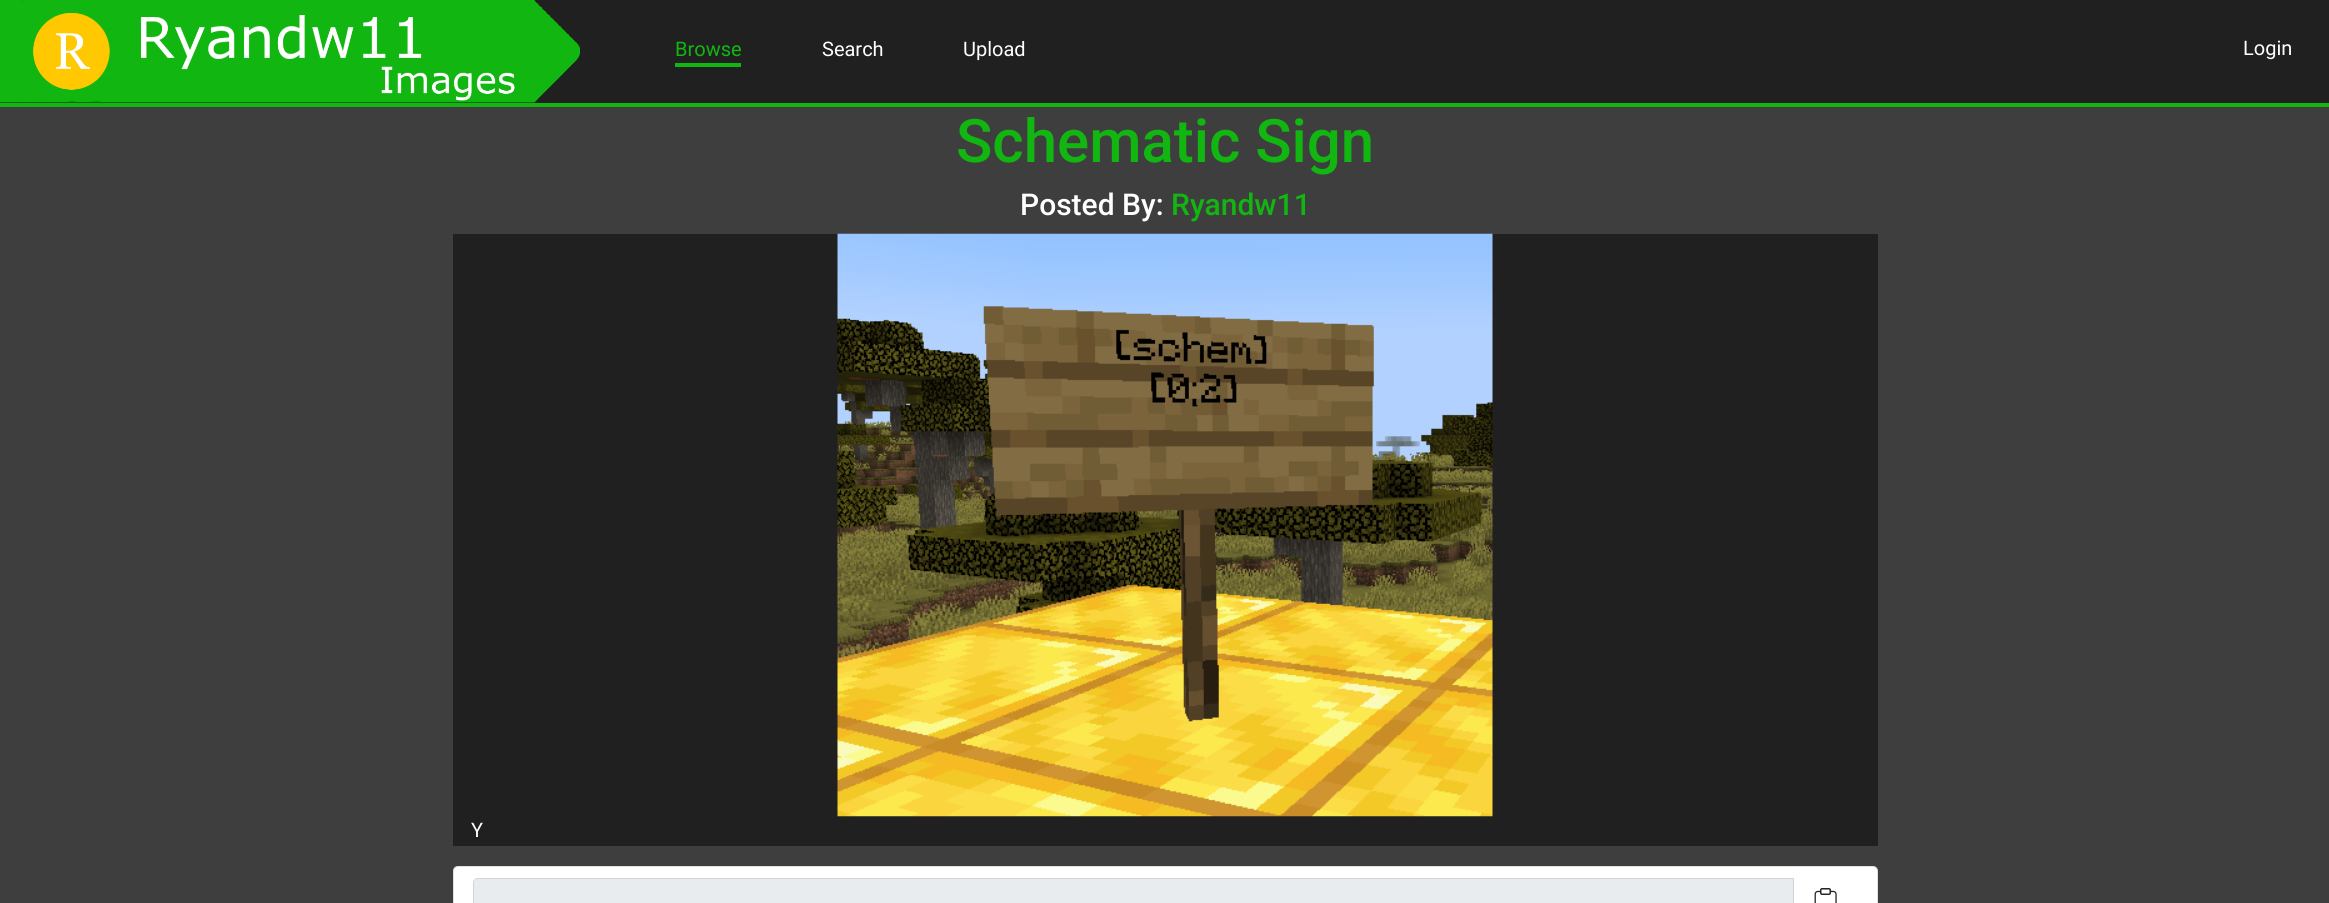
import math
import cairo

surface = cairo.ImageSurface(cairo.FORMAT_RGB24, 2329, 903)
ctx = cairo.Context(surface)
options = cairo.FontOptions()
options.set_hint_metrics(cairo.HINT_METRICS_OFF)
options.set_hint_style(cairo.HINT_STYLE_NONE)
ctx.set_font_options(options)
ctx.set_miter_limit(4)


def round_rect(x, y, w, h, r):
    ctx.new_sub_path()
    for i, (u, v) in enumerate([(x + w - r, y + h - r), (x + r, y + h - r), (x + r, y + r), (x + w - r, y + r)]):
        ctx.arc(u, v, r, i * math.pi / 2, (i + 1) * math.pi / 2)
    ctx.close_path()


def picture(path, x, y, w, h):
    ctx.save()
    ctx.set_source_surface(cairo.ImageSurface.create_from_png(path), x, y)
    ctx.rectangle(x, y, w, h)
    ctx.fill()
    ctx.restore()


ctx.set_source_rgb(0.247, 0.243, 0.243)
ctx.paint()
ctx.set_source_rgb(0.125, 0.125, 0.125)
ctx.rectangle(0, 0, 2329, 103)
ctx.fill()
ctx.set_source_rgb(0.067, 0.714, 0.067)
ctx.rectangle(0, 103, 2329, 4)
ctx.fill()
picture("img1.png", 0, 0, 580, 103)
ctx.select_font_face("Roboto")
ctx.set_font_size(20)
ctx.move_to(675, 56)
ctx.show_text("Browse")
ctx.rectangle(675, 63, 66, 4)
ctx.fill()
ctx.set_source_rgb(1, 1, 1)
ctx.move_to(822, 56)
ctx.show_text("Search")
ctx.move_to(963, 56)
ctx.show_text("Upload")
ctx.move_to(2243, 55)
ctx.show_text("Login")
ctx.select_font_face("Roboto Medium")
ctx.set_font_size(60)
ctx.set_source_rgb(0.067, 0.714, 0.067)
ctx.move_to(956, 162)
ctx.show_text("Schematic Sign")
ctx.set_font_size(30)
ctx.set_source_rgb(1, 1, 1)
ctx.move_to(1020, 215)
ctx.show_text("Posted By:")
ctx.set_source_rgb(0.067, 0.714, 0.067)
ctx.move_to(1171, 215)
ctx.show_text("Ryandw11")
ctx.set_source_rgb(0.125, 0.125, 0.125)
ctx.rectangle(453, 234, 1425, 612)
ctx.fill()
picture("img2.png", 837, 233, 656, 584)
ctx.select_font_face("Roboto")
ctx.set_font_size(20)
ctx.set_source_rgb(1, 1, 1)
ctx.move_to(471, 837)
ctx.show_text("Y")
round_rect(453, 866, 1425, 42, 5)
ctx.fill()
round_rect(453.5, 866.5, 1424, 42, 4.5)
ctx.set_source_rgba(0, 0, 0, 0.12)
ctx.set_line_width(1)
ctx.stroke()
ctx.set_source_rgb(0.914, 0.925, 0.937)
ctx.new_path()
ctx.move_to(478, 879)
ctx.line_to(1793, 879)
ctx.line_to(1793, 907)
ctx.line_to(478, 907)
ctx.curve_to(476, 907, 474, 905, 474, 903)
ctx.line_to(474, 883)
ctx.curve_to(474, 881, 476, 879, 478, 879)
ctx.close_path()
ctx.fill()
ctx.new_path()
ctx.move_to(478, 878.5)
ctx.line_to(1793.5, 878.5)
ctx.line_to(1793.5, 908.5)
ctx.line_to(478, 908.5)
ctx.curve_to(475.5, 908.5, 473.5, 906.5, 473.5, 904)
ctx.line_to(473.5, 883)
ctx.curve_to(473.5, 880.5, 475.5, 878.5, 478, 878.5)
ctx.close_path()
ctx.set_source_rgb(0.808, 0.831, 0.855)
ctx.stroke()
picture("img3.png", 1814, 888, 23, 15)
surface.write_to_png("page.png")
